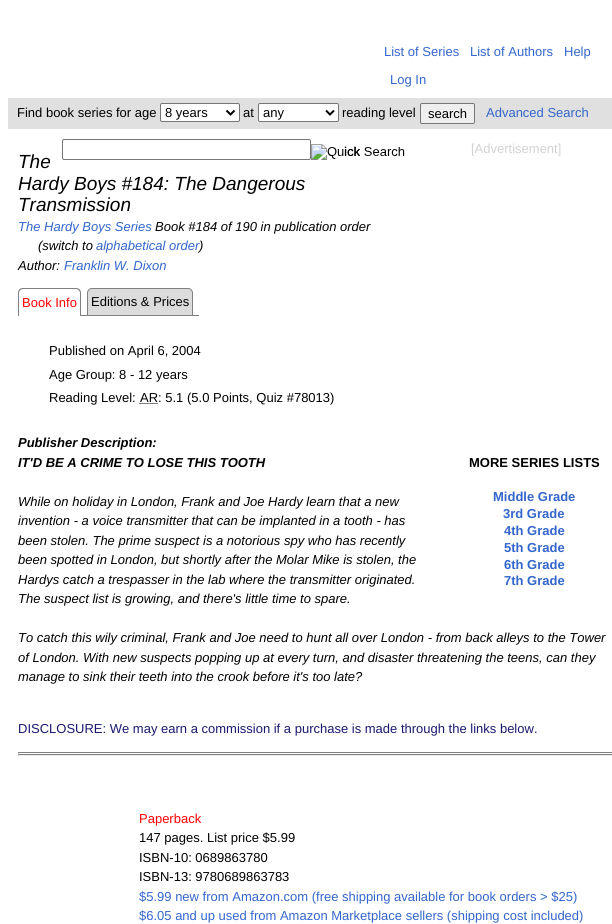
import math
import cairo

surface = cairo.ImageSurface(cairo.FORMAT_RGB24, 612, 924)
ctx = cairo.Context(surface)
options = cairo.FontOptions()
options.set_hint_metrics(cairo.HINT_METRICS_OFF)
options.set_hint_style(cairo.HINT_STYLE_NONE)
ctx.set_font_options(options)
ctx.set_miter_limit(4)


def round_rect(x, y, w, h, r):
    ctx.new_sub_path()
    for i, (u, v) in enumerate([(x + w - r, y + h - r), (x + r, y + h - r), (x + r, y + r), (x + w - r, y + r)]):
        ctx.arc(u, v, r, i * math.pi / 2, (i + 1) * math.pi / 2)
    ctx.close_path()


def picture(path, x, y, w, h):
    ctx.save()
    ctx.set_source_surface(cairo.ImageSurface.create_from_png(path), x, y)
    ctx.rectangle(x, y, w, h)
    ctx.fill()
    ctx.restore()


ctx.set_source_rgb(1, 1, 1)
ctx.paint()
ctx.select_font_face("Liberation Sans")
ctx.set_font_size(13)
ctx.set_source_rgb(0.2, 0.4, 0.8)
ctx.move_to(384, 56)
ctx.show_text("List of Series")
ctx.move_to(470, 56)
ctx.show_text("List of Authors")
ctx.move_to(564, 56)
ctx.show_text("Help")
ctx.move_to(390, 84)
ctx.show_text("Log In")
ctx.set_source_rgb(0.878, 0.878, 0.878)
ctx.rectangle(8, 98, 604, 31)
ctx.fill()
ctx.set_source_rgb(0, 0, 0)
ctx.move_to(17, 117)
ctx.show_text("Find book series for age")
ctx.set_source_rgb(1, 1, 1)
round_rect(160.5, 103.5, 79, 18, 1.5)
ctx.fill_preserve()
ctx.set_source_rgb(0.463, 0.463, 0.463)
ctx.set_line_width(1)
ctx.stroke()
ctx.new_path()
ctx.move_to(226.5, 110.5)
ctx.line_to(230.5, 114.5)
ctx.line_to(234.5, 110.5)
ctx.set_source_rgb(0, 0, 0)
ctx.set_line_width(2)
ctx.stroke()
ctx.move_to(165, 117)
ctx.show_text("8 years")
ctx.move_to(243, 117)
ctx.show_text("at")
ctx.set_source_rgb(1, 1, 1)
round_rect(258.5, 103.5, 80, 18, 1.5)
ctx.fill_preserve()
ctx.set_source_rgb(0.463, 0.463, 0.463)
ctx.set_line_width(1)
ctx.stroke()
ctx.new_path()
ctx.move_to(326, 110.5)
ctx.line_to(330, 114.5)
ctx.line_to(334, 110.5)
ctx.set_source_rgb(0, 0, 0)
ctx.set_line_width(2)
ctx.stroke()
ctx.move_to(263, 117)
ctx.show_text("any")
ctx.move_to(342, 117)
ctx.show_text("reading level")
ctx.set_source_rgb(0.937, 0.937, 0.937)
round_rect(420.5, 103.5, 54, 20, 1.5)
ctx.fill_preserve()
ctx.set_source_rgb(0.463, 0.463, 0.463)
ctx.set_line_width(1)
ctx.stroke()
ctx.set_source_rgb(0, 0, 0)
ctx.move_to(428, 118)
ctx.show_text("search")
ctx.set_source_rgb(0.2, 0.4, 0.8)
ctx.move_to(486, 117)
ctx.show_text("Advanced Search")
round_rect(62.5, 139.5, 248, 20, 1.5)
ctx.set_source_rgb(0.463, 0.463, 0.463)
ctx.stroke()
picture("img1.png", 311, 144, 94, 16)
ctx.set_source_rgb(0, 0, 0)
ctx.move_to(344, 156)
ctx.show_text("ick")
ctx.set_source_rgb(0.827, 0.827, 0.827)
ctx.move_to(471, 153)
ctx.show_text("[Advertisement]")
ctx.select_font_face("Liberation Sans", cairo.FONT_SLANT_ITALIC)
ctx.set_font_size(19)
ctx.set_source_rgb(0, 0, 0)
ctx.move_to(18, 168)
ctx.show_text("The")
ctx.move_to(18, 190)
ctx.show_text("Hardy Boys #184: The Dangerous")
ctx.move_to(18, 211)
ctx.show_text("Transmission")
ctx.set_font_size(13)
ctx.set_source_rgb(0.2, 0.4, 0.8)
ctx.move_to(18, 231)
ctx.show_text("The Hardy Boys Series")
ctx.set_source_rgb(0, 0, 0)
ctx.move_to(155, 231)
ctx.show_text("Book #184 of 190 in publication order")
ctx.move_to(38, 250)
ctx.show_text("(switch to")
ctx.set_source_rgb(0.2, 0.4, 0.8)
ctx.move_to(96, 250)
ctx.show_text("alphabetical order")
ctx.set_source_rgb(0, 0, 0)
ctx.move_to(199, 250)
ctx.show_text(")")
ctx.move_to(18, 270)
ctx.show_text("Author:")
ctx.set_source_rgb(0.2, 0.4, 0.8)
ctx.move_to(64, 270)
ctx.show_text("Franklin W. Dixon")
ctx.set_source_rgb(0.502, 0.502, 0.502)
ctx.set_fill_rule(cairo.FILL_RULE_EVEN_ODD)
ctx.new_path()
ctx.move_to(23, 288)
ctx.line_to(76, 288)
ctx.curve_to(79, 288, 81, 290, 81, 293)
ctx.line_to(81, 316)
ctx.line_to(18, 316)
ctx.line_to(18, 293)
ctx.curve_to(18, 290, 20, 288, 23, 288)
ctx.close_path()
ctx.move_to(23, 289)
ctx.line_to(76, 289)
ctx.curve_to(78, 289, 80, 291, 80, 293)
ctx.line_to(80, 316)
ctx.line_to(19, 316)
ctx.line_to(19, 293)
ctx.curve_to(19, 291, 21, 289, 23, 289)
ctx.close_path()
ctx.fill()
ctx.select_font_face("Liberation Sans")
ctx.set_source_rgb(1, 0, 0)
ctx.move_to(22, 307)
ctx.show_text("Book Info")
ctx.set_source_rgb(0.863, 0.863, 0.863)
ctx.new_path()
ctx.move_to(92, 288.5)
ctx.line_to(188, 288.5)
ctx.curve_to(190.5, 288.5, 192.5, 290.5, 192.5, 293)
ctx.line_to(192.5, 315.5)
ctx.line_to(87.5, 315.5)
ctx.line_to(87.5, 293)
ctx.curve_to(87.5, 290.5, 89.5, 288.5, 92, 288.5)
ctx.close_path()
ctx.fill_preserve()
ctx.set_source_rgb(0.502, 0.502, 0.502)
ctx.stroke()
ctx.set_source_rgb(0, 0, 0)
ctx.move_to(91, 306)
ctx.show_text("Editions & Prices")
ctx.set_source_rgb(0.502, 0.502, 0.502)
ctx.rectangle(81, 315, 6, 1)
ctx.fill()
ctx.rectangle(193, 315, 6, 1)
ctx.fill()
ctx.set_source_rgb(0, 0, 0)
ctx.move_to(49, 355)
ctx.show_text("Published on April 6, 2004")
ctx.move_to(49, 379)
ctx.show_text("Age Group: 8 - 12 years")
ctx.move_to(49, 402)
ctx.show_text("Reading Level:")
ctx.new_path()
ctx.move_to(139.5, 403.5)
ctx.line_to(158, 403.5)
ctx.set_dash([1, 1])
ctx.stroke()
ctx.move_to(140, 402)
ctx.show_text("AR: 5.1 (5.0 Points, Quiz #78013)")
ctx.select_font_face("Liberation Sans", cairo.FONT_SLANT_ITALIC, cairo.FONT_WEIGHT_BOLD)
ctx.move_to(18, 447)
ctx.show_text("Publisher Description:")
ctx.move_to(18, 467)
ctx.show_text("IT'D BE A CRIME TO LOSE THIS TOOTH")
ctx.select_font_face("Liberation Sans", cairo.FONT_SLANT_NORMAL, cairo.FONT_WEIGHT_BOLD)
ctx.move_to(469, 467)
ctx.show_text("MORE SERIES LISTS")
ctx.set_source_rgb(0.2, 0.4, 0.8)
ctx.move_to(493, 501)
ctx.show_text("Middle Grade")
ctx.move_to(503, 518)
ctx.show_text("3rd Grade")
ctx.move_to(504, 535)
ctx.show_text("4th Grade")
ctx.move_to(504, 552)
ctx.show_text("5th Grade")
ctx.move_to(504, 569)
ctx.show_text("6th Grade")
ctx.move_to(504, 585)
ctx.show_text("7th Grade")
ctx.select_font_face("Liberation Sans", cairo.FONT_SLANT_ITALIC)
ctx.set_source_rgb(0, 0, 0)
ctx.move_to(18, 506)
ctx.show_text("While on holiday in London, Frank and Joe Hardy learn that a new")
ctx.move_to(18, 525)
ctx.show_text("invention - a voice transmitter that can be implanted in a tooth - has")
ctx.move_to(18, 545)
ctx.show_text("been stolen. The prime suspect is a notorious spy who has recently")
ctx.move_to(18, 564)
ctx.show_text("been spotted in London, but shortly after the Molar Mike is stolen, the")
ctx.move_to(18, 584)
ctx.show_text("Hardys catch a trespasser in the lab where the transmitter originated.")
ctx.move_to(18, 603)
ctx.show_text("The suspect list is growing, and there's little time to spare.")
ctx.move_to(18, 642)
ctx.show_text("To catch this wily criminal, Frank and Joe need to hunt all over London - from back alleys to the Tower")
ctx.move_to(18, 662)
ctx.show_text("of London. With new suspects popping up at every turn, and disaster threatening the teens, can they")
ctx.move_to(18, 681)
ctx.show_text("manage to sink their teeth into the crook before it's too late?")
ctx.select_font_face("Liberation Sans")
ctx.set_source_rgb(0.098, 0.098, 0.439)
ctx.move_to(18, 733)
ctx.show_text("DISCLOSURE: We may earn a commission if a purchase is made through the links below.")
ctx.set_source_rgb(0.502, 0.502, 0.502)
ctx.rectangle(18, 752, 594, 1)
ctx.fill()
ctx.rectangle(18, 754, 594, 1)
ctx.fill()
ctx.set_source_rgb(0.933, 0.933, 0.933)
ctx.rectangle(18, 755, 594, 1)
ctx.fill()
ctx.set_source_rgb(0.624, 0.624, 0.624)
ctx.set_fill_rule(cairo.FILL_RULE_WINDING)
ctx.new_path()
ctx.move_to(18, 756)
ctx.line_to(18, 752)
ctx.line_to(19, 755)
ctx.close_path()
ctx.fill()
ctx.set_source_rgb(1, 0, 0)
ctx.move_to(139, 823)
ctx.show_text("Paperback")
ctx.set_source_rgb(0, 0, 0)
ctx.move_to(139, 842)
ctx.show_text("147 pages. List price $5.99")
ctx.move_to(139, 862)
ctx.show_text("ISBN-10: 0689863780")
ctx.move_to(139, 881)
ctx.show_text("ISBN-13: 9780689863783")
ctx.set_source_rgb(0.2, 0.4, 0.8)
ctx.move_to(139, 901)
ctx.show_text("$5.99 new from Amazon.com (free shipping available for book orders > $25)")
ctx.move_to(139, 920)
ctx.show_text("$6.05 and up used from Amazon Marketplace sellers (shipping cost included)")
surface.write_to_png("page.png")
